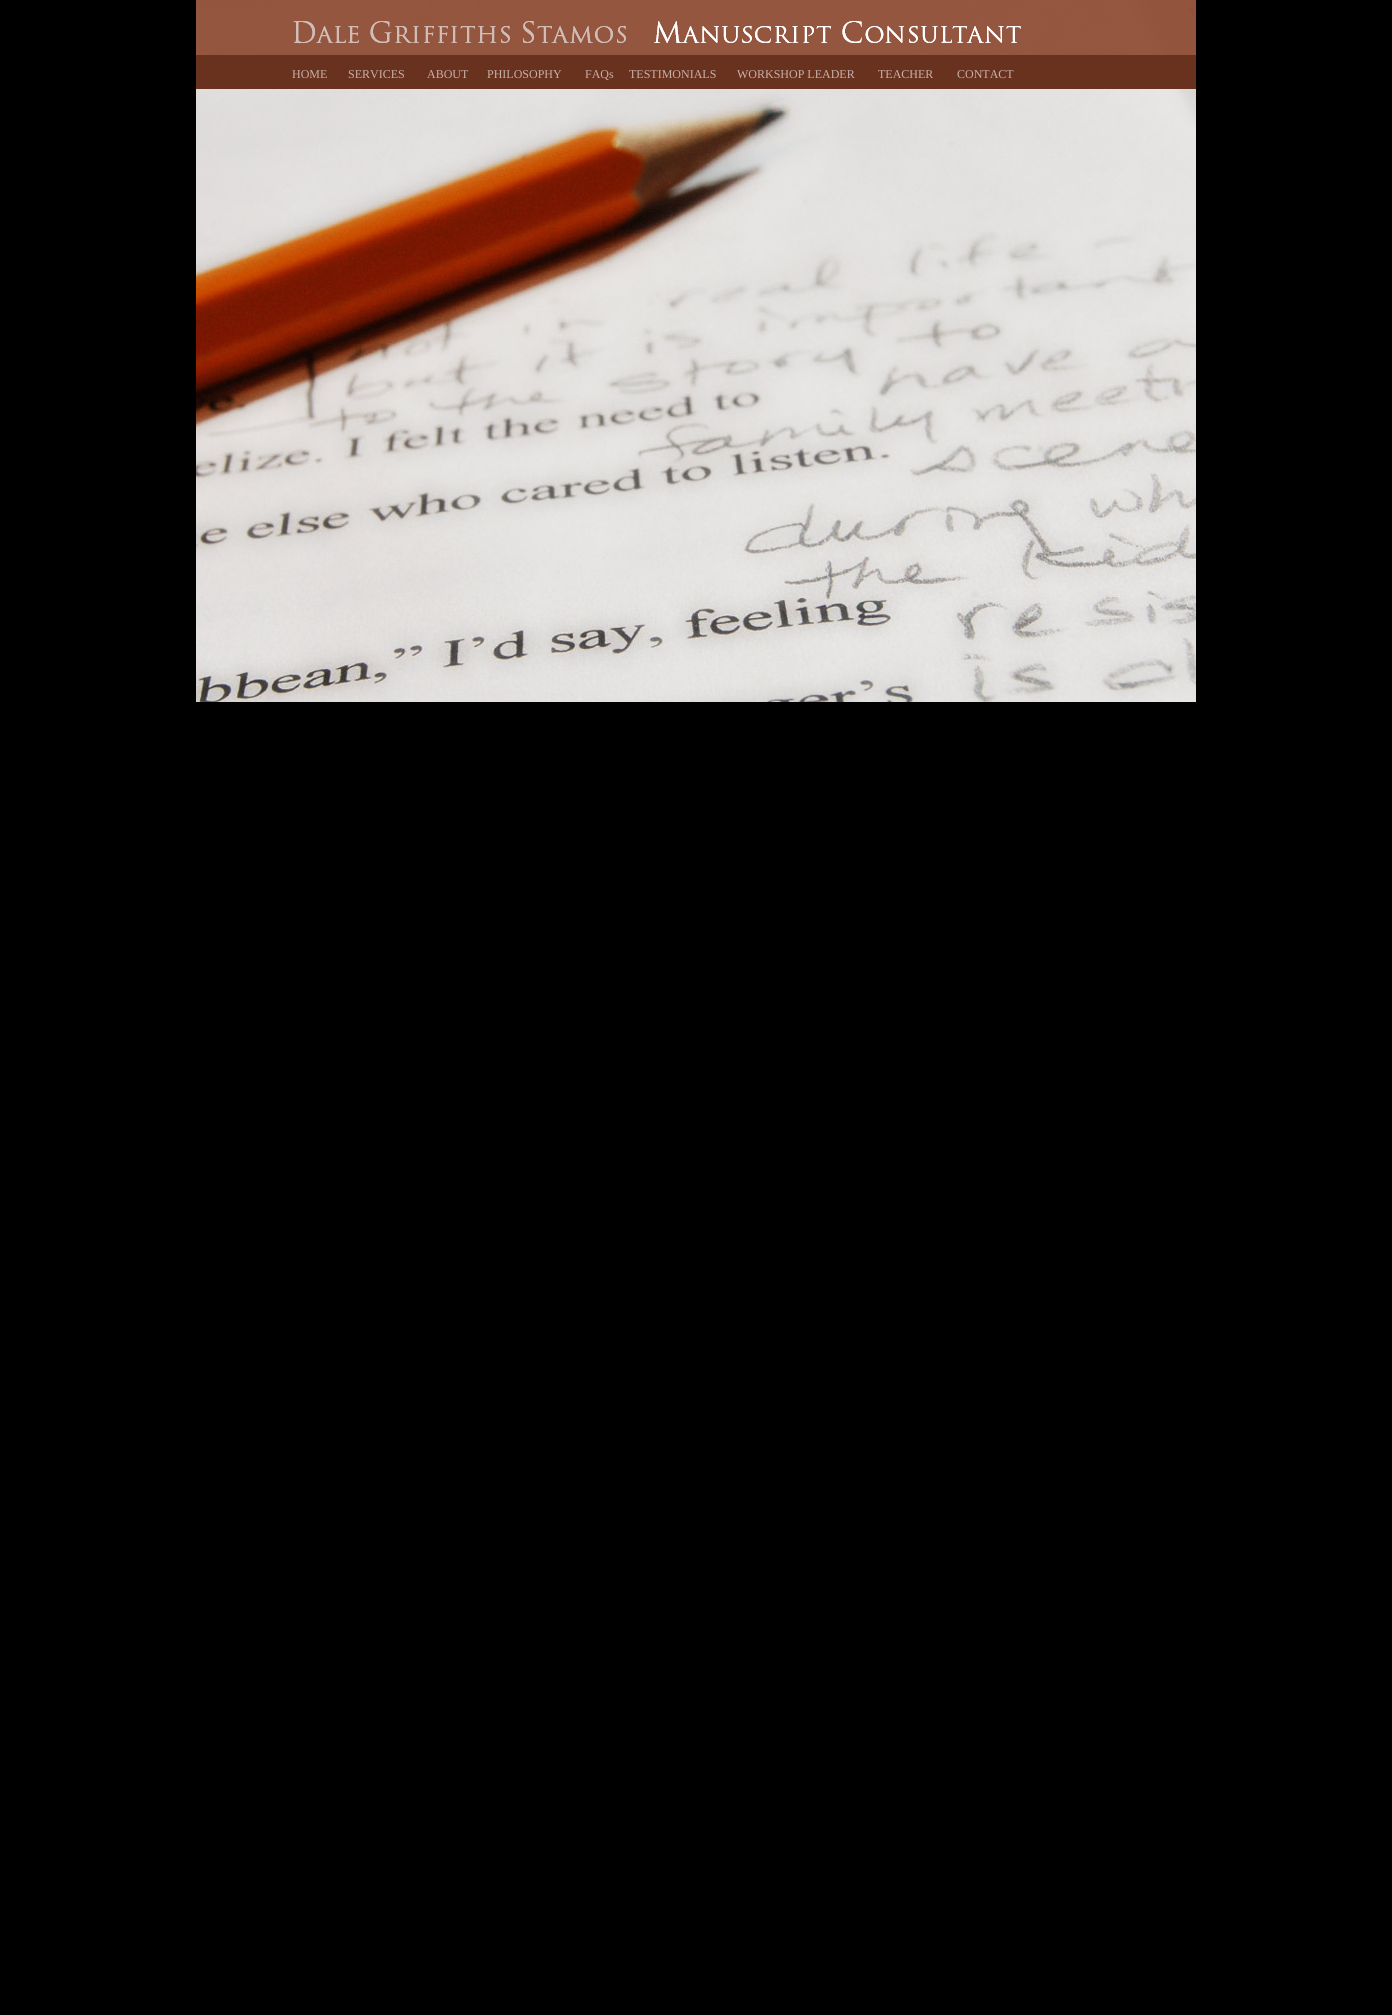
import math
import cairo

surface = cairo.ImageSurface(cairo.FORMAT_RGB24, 1392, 2015)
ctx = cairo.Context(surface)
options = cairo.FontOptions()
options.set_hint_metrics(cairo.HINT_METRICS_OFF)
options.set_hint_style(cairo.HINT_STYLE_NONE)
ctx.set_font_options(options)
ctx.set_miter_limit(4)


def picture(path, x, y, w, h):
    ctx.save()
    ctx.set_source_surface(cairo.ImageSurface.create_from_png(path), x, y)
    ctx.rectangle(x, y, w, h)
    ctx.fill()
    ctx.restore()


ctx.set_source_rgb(0, 0, 0)
ctx.paint()
picture("img1.png", 196, 0, 1000, 55)
ctx.set_source_rgb(0.412, 0.196, 0.122)
ctx.rectangle(196, 55, 1000, 34)
ctx.fill()
ctx.select_font_face("Liberation Serif")
ctx.set_font_size(12)
ctx.set_source_rgb(0.78, 0.69, 0.663)
ctx.move_to(292, 78)
ctx.show_text("HOME")
ctx.move_to(348, 78)
ctx.show_text("SERVICES")
ctx.move_to(427, 78)
ctx.show_text("ABOUT")
ctx.move_to(487, 78)
ctx.show_text("PHILOSOPHY")
ctx.move_to(585, 78)
ctx.show_text("FAQs")
ctx.move_to(629, 78)
ctx.show_text("TESTIMONIALS")
ctx.move_to(737, 78)
ctx.show_text("WORKSHOP LEADER")
ctx.move_to(878, 78)
ctx.show_text("TEACHER")
ctx.move_to(957, 78)
ctx.show_text("CONTACT")
picture("img2.png", 196, 89, 1000, 613)
surface.write_to_png("page.png")
